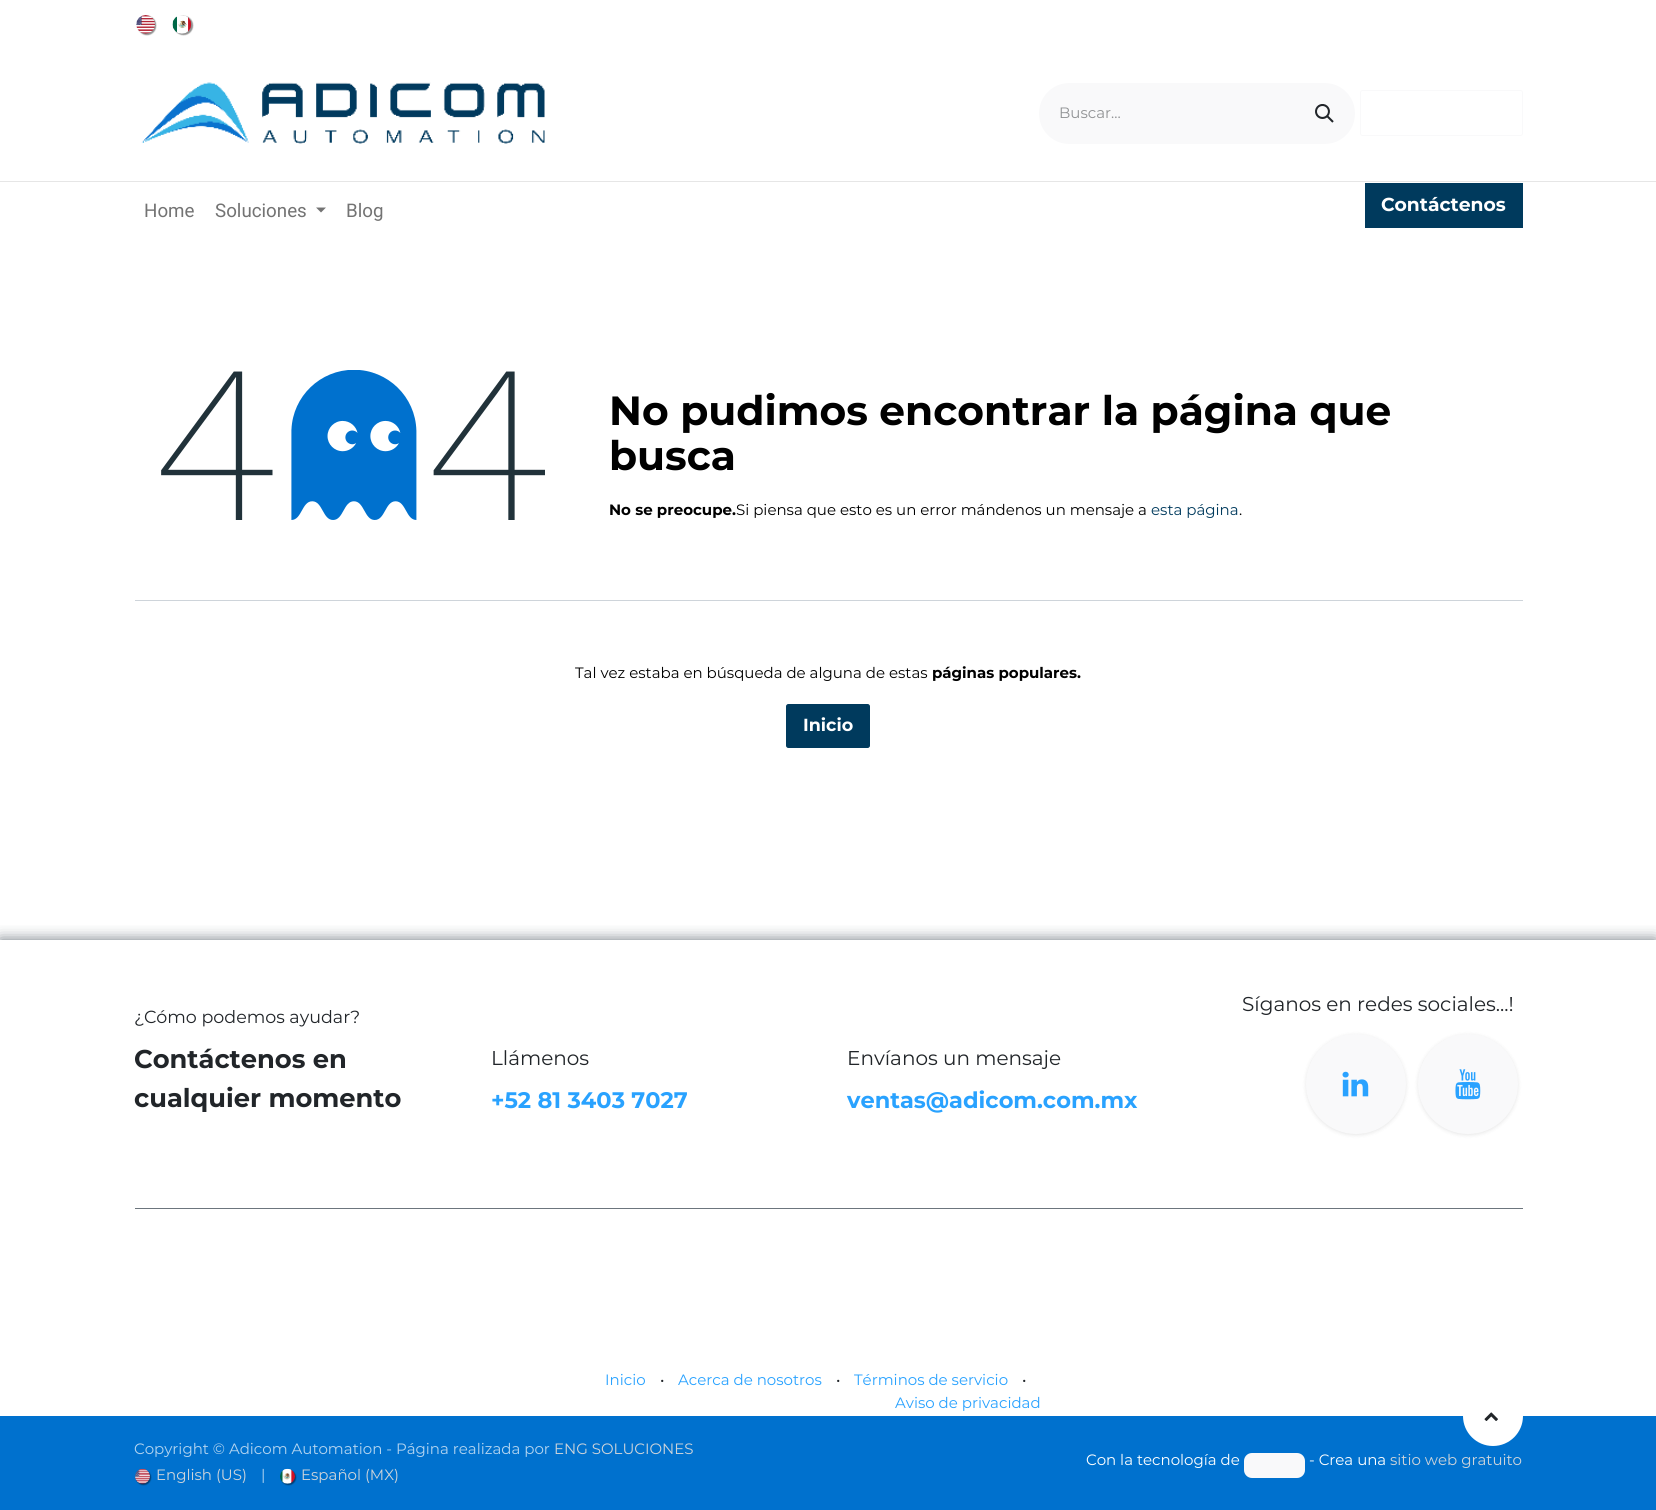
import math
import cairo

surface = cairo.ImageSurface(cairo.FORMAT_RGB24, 1656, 1510)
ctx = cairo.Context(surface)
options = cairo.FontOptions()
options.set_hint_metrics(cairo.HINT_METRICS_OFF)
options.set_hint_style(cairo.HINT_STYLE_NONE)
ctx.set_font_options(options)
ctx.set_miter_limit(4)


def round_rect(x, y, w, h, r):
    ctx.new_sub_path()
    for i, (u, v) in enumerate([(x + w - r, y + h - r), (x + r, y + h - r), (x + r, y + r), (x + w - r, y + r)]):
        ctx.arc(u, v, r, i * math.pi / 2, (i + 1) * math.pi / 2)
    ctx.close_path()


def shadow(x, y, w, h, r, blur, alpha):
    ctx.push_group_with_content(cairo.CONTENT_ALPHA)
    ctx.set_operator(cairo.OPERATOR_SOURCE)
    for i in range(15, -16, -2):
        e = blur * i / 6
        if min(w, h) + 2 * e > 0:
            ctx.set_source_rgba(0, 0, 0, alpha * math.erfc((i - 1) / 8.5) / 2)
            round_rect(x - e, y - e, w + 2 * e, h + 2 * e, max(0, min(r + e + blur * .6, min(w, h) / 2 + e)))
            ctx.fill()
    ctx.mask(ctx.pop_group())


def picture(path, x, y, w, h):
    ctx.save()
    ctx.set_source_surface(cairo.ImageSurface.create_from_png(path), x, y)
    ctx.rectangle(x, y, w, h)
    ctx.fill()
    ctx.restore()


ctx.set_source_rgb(1, 1, 1)
ctx.paint()
ctx.set_source_rgb(0, 0, 0)
shadow(138, 16, 18, 19, 9, 0.5, 0.43)
picture("img1.png", 136, 15, 19, 19)
shadow(174, 16, 19, 19, 9.5, 0.5, 0.43)
picture("img2.png", 172, 16, 20, 18)
picture("img3.png", 141, 82, 404, 62)
ctx.set_source_rgb(0.973, 0.976, 0.98)
ctx.new_path()
ctx.move_to(1069.5, 83)
ctx.line_to(1295, 83)
ctx.line_to(1295, 144)
ctx.line_to(1069.5, 144)
ctx.curve_to(1052.5, 144, 1039, 130.5, 1039, 113.5)
ctx.curve_to(1039, 96.5, 1052.5, 83, 1069.5, 83)
ctx.close_path()
ctx.fill()
ctx.select_font_face("Montserrat")
ctx.set_font_size(15)
ctx.set_source_rgb(0.565, 0.573, 0.58)
ctx.move_to(1059, 118)
ctx.show_text("Buscar…")
ctx.set_source_rgb(0.973, 0.976, 0.98)
ctx.new_path()
ctx.move_to(1294, 83)
ctx.line_to(1324.5, 83)
ctx.curve_to(1341.5, 83, 1355, 96.5, 1355, 113.5)
ctx.curve_to(1355, 130.5, 1341.5, 144, 1324.5, 144)
ctx.line_to(1294, 144)
ctx.close_path()
ctx.fill()
picture("img4.png", 1315, 104, 19, 19)
round_rect(1360.5, 90.5, 162, 45, 2)
ctx.set_line_width(1)
ctx.stroke()
ctx.set_source_rgb(0.902, 0.902, 0.902)
ctx.rectangle(0, 181, 1656, 1)
ctx.fill()
ctx.select_font_face("Roboto")
ctx.set_font_size(18.75)
ctx.set_source_rgb(0.451, 0.451, 0.451)
ctx.move_to(144, 217)
ctx.show_text("Home")
ctx.move_to(215, 217)
ctx.show_text("Soluciones")
ctx.new_path()
ctx.move_to(316, 207.5)
ctx.line_to(326, 207.5)
ctx.line_to(321, 212.5)
ctx.close_path()
ctx.fill()
ctx.move_to(346, 217)
ctx.show_text("Blog")
ctx.set_source_rgb(0, 0.227, 0.365)
ctx.rectangle(1365, 183, 158, 45)
ctx.fill()
ctx.select_font_face("Montserrat", cairo.FONT_SLANT_NORMAL, cairo.FONT_WEIGHT_BOLD)
ctx.set_source_rgb(1, 1, 1)
ctx.move_to(1381, 211)
ctx.show_text("Contáctenos")
picture("img5.png", 161, 370, 384, 150)
ctx.set_font_size(40.75)
ctx.set_source_rgb(0, 0, 0)
ctx.move_to(609, 425)
ctx.show_text("No pudimos encontrar la página que")
ctx.move_to(609, 470)
ctx.show_text("busca")
ctx.set_font_size(15)
ctx.move_to(609, 515)
ctx.show_text("No se preocupe.")
ctx.select_font_face("Montserrat")
ctx.move_to(736, 515)
ctx.show_text("Si piensa que esto es un error mándenos un mensaje a")
ctx.set_source_rgb(0, 0.227, 0.365)
ctx.move_to(1151, 515)
ctx.show_text("esta página")
ctx.set_source_rgb(0, 0, 0)
ctx.move_to(1239, 515)
ctx.show_text(".")
ctx.set_source_rgb(0.808, 0.831, 0.855)
ctx.rectangle(135, 600, 1388, 1)
ctx.fill()
ctx.set_source_rgb(0, 0, 0)
ctx.move_to(575, 678)
ctx.show_text("Tal vez estaba en búsqueda de alguna de estas")
ctx.select_font_face("Montserrat", cairo.FONT_SLANT_NORMAL, cairo.FONT_WEIGHT_BOLD)
ctx.move_to(932, 678)
ctx.show_text("páginas populares.")
ctx.set_source_rgb(0, 0.227, 0.365)
round_rect(786.5, 704.5, 83, 43, 2)
ctx.fill_preserve()
ctx.stroke()
ctx.set_font_size(17.5)
ctx.set_source_rgb(1, 1, 1)
ctx.move_to(803, 731)
ctx.show_text("Inicio")
ctx.save()
ctx.rectangle(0, 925, 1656, 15)
ctx.clip()
ctx.set_source_rgb(0.424, 0.459, 0.49)
shadow(0, 940, 1656, 476, 0, 7.5, 1)
ctx.restore()
ctx.select_font_face("Montserrat")
ctx.set_font_size(20)
ctx.set_source_rgb(0.129, 0.145, 0.161)
ctx.move_to(1242, 1011)
ctx.show_text("Síganos en redes sociales...!")
ctx.set_source_rgb(0, 0, 0)
shadow(1306, 1035, 100, 100, 50, 2, 0.1)
ctx.set_source_rgb(0.973, 0.976, 0.98)
ctx.arc(1356, 1084, 50, 0, 2 * math.pi)
ctx.fill()
picture("img6.png", 1342, 1071, 27, 26)
ctx.set_source_rgb(0, 0, 0)
shadow(1418, 1035, 100, 100, 50, 2, 0.1)
ctx.set_source_rgb(0.973, 0.976, 0.98)
ctx.arc(1468, 1084, 50, 0, 2 * math.pi)
ctx.fill()
picture("img7.png", 1455, 1069, 26, 31)
ctx.set_font_size(17.5)
ctx.set_source_rgb(0.129, 0.145, 0.161)
ctx.move_to(134, 1023)
ctx.show_text("¿Cómo podemos ayudar?")
ctx.select_font_face("Montserrat", cairo.FONT_SLANT_NORMAL, cairo.FONT_WEIGHT_BOLD)
ctx.set_font_size(25.75)
ctx.move_to(134, 1068)
ctx.show_text("Contáctenos en")
ctx.move_to(134, 1107)
ctx.show_text("cualquier momento")
ctx.select_font_face("Montserrat")
ctx.set_font_size(20)
ctx.move_to(491, 1065)
ctx.show_text("Llámenos")
ctx.select_font_face("Montserrat", cairo.FONT_SLANT_NORMAL, cairo.FONT_WEIGHT_BOLD)
ctx.set_font_size(22.5)
ctx.set_source_rgb(0.161, 0.635, 1)
ctx.move_to(491, 1108)
ctx.show_text("+52 81 3403 7027")
ctx.select_font_face("Montserrat")
ctx.set_font_size(20)
ctx.set_source_rgb(0.129, 0.145, 0.161)
ctx.move_to(847, 1065)
ctx.show_text("Envíanos un mensaje")
ctx.select_font_face("Montserrat", cairo.FONT_SLANT_NORMAL, cairo.FONT_WEIGHT_BOLD)
ctx.set_font_size(22.5)
ctx.set_source_rgb(0.161, 0.635, 1)
ctx.move_to(847, 1108)
ctx.show_text("ventas@adicom.com.mx")
ctx.set_source_rgb(0.424, 0.459, 0.49)
ctx.rectangle(135, 1208, 1388, 1)
ctx.fill()
ctx.select_font_face("Montserrat")
ctx.set_font_size(15)
ctx.set_source_rgb(0.161, 0.635, 1)
ctx.move_to(605, 1385)
ctx.show_text("Inicio")
ctx.set_source_rgb(0.129, 0.145, 0.161)
ctx.move_to(660, 1385)
ctx.show_text("•")
ctx.set_source_rgb(0.161, 0.635, 1)
ctx.move_to(678, 1385)
ctx.show_text("Acerca de nosotros")
ctx.set_source_rgb(0.129, 0.145, 0.161)
ctx.move_to(836, 1385)
ctx.show_text("•")
ctx.set_source_rgb(0.161, 0.635, 1)
ctx.move_to(854, 1385)
ctx.show_text("Términos de servicio")
ctx.set_source_rgb(0.129, 0.145, 0.161)
ctx.move_to(1022, 1385)
ctx.show_text("•")
ctx.set_source_rgb(0.161, 0.635, 1)
ctx.move_to(895, 1408)
ctx.show_text("Aviso de privacidad")
ctx.set_source_rgb(0, 0.443, 0.808)
ctx.rectangle(0, 1416, 1656, 94)
ctx.fill()
ctx.set_source_rgb(1, 1, 1)
ctx.arc(1493, 1416, 30, 0, 2 * math.pi)
ctx.fill()
picture("img8.png", 1484, 1412, 14, 9)
ctx.set_source_rgb(0.702, 0.831, 0.941)
ctx.move_to(134, 1454)
ctx.show_text("Copyright © Adicom Automation - Página realizada por")
ctx.set_source_rgb(0.808, 0.831, 0.855)
ctx.move_to(554, 1454)
ctx.show_text("ENG SOLUCIONES")
ctx.set_source_rgb(0, 0, 0)
shadow(136, 1470, 15, 15, 7.5, 0.5, 0.43)
picture("img9.png", 135, 1468, 15, 16)
ctx.set_source_rgb(0.808, 0.831, 0.855)
ctx.move_to(156, 1480)
ctx.show_text("English (US)")
ctx.set_source_rgb(0.702, 0.831, 0.941)
ctx.move_to(261, 1480)
ctx.show_text("|")
ctx.set_source_rgb(0, 0, 0)
shadow(281, 1470, 15, 15, 7.5, 0.5, 0.43)
picture("img10.png", 280, 1468, 15, 16)
ctx.set_source_rgb(0.808, 0.831, 0.855)
ctx.move_to(301, 1480)
ctx.show_text("Español (MX)")
ctx.set_source_rgb(1, 1, 1)
ctx.move_to(1086, 1465)
ctx.show_text("Con la tecnología de")
ctx.set_source_rgb(0.973, 0.976, 0.98)
round_rect(1244, 1453, 61, 25, 8)
ctx.fill()
ctx.set_source_rgb(1, 1, 1)
ctx.move_to(1309, 1465)
ctx.show_text("- Crea una")
ctx.set_source_rgb(0.808, 0.831, 0.855)
ctx.move_to(1390, 1465)
ctx.show_text("sitio web gratuito")
surface.write_to_png("page.png")
